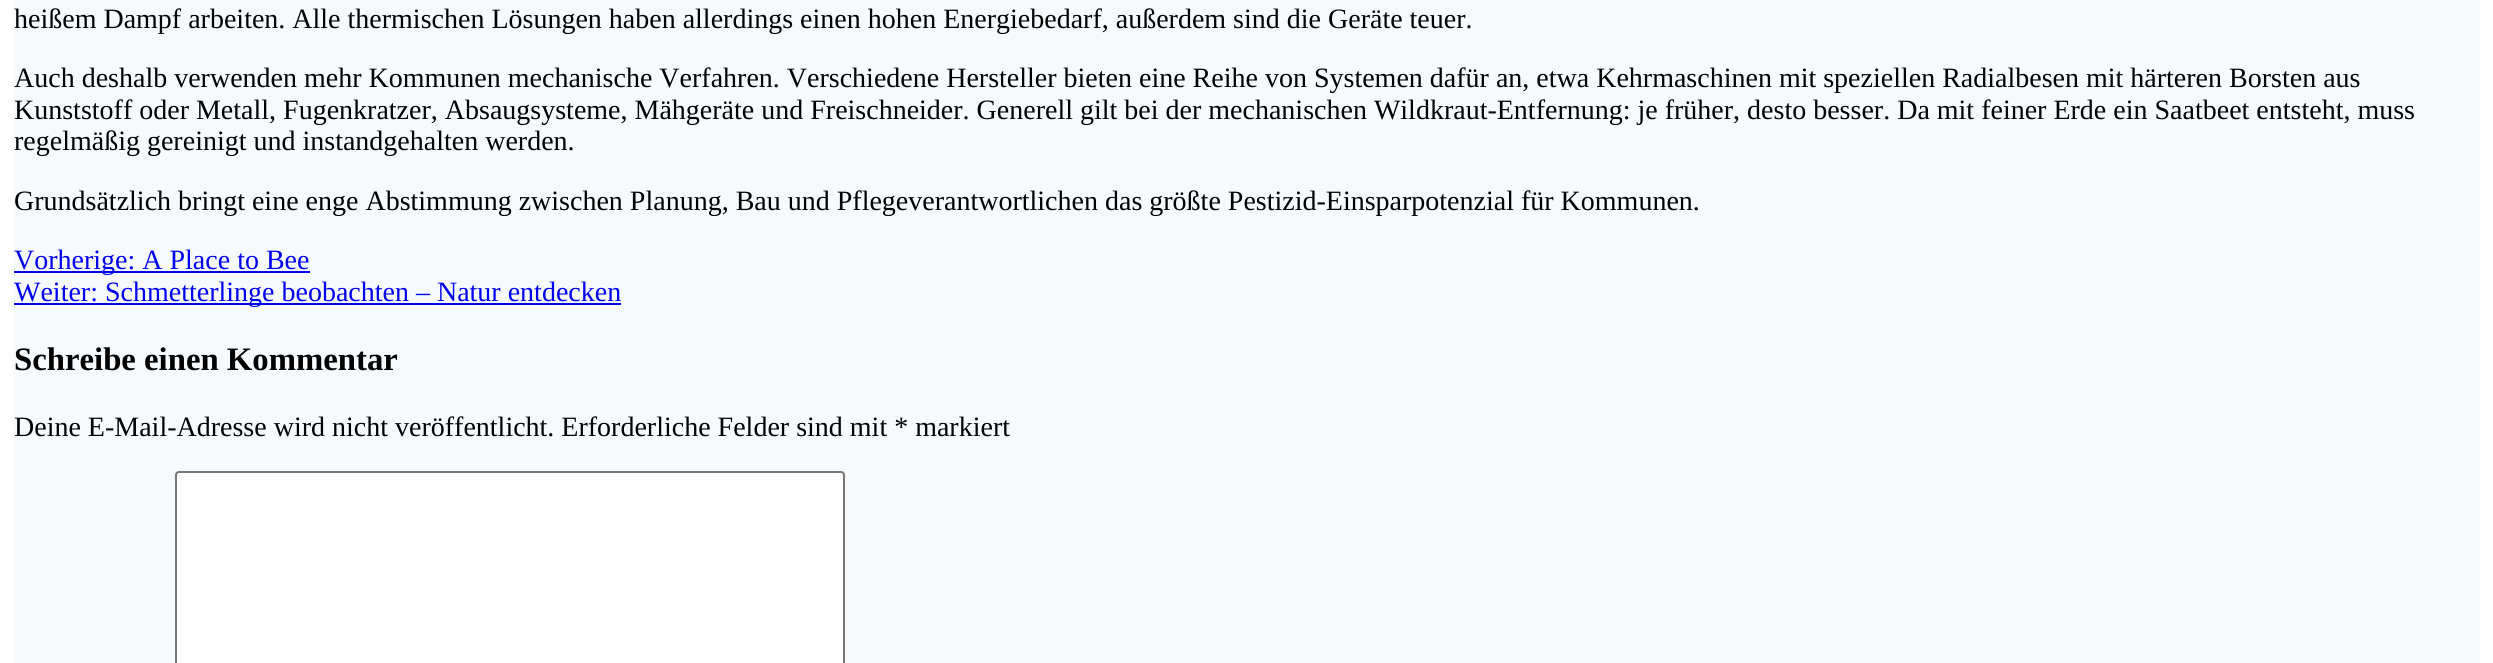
import math
import cairo

surface = cairo.ImageSurface(cairo.FORMAT_RGB24, 2493, 663)
ctx = cairo.Context(surface)
options = cairo.FontOptions()
options.set_hint_metrics(cairo.HINT_METRICS_OFF)
options.set_hint_style(cairo.HINT_STYLE_NONE)
ctx.set_font_options(options)
ctx.set_miter_limit(4)


def round_rect(x, y, w, h, r):
    ctx.new_sub_path()
    for i, (u, v) in enumerate([(x + w - r, y + h - r), (x + r, y + h - r), (x + r, y + r), (x + w - r, y + r)]):
        ctx.arc(u, v, r, i * math.pi / 2, (i + 1) * math.pi / 2)
    ctx.close_path()


ctx.set_source_rgb(1, 1, 1)
ctx.paint()
ctx.set_source_rgb(0.961, 0.98, 0.992)
ctx.rectangle(14, 0, 2466, 663)
ctx.fill()
ctx.select_font_face("Liberation Serif")
ctx.set_font_size(28)
ctx.set_source_rgb(0, 0, 0)
ctx.move_to(14, 28)
ctx.show_text("heißem Dampf arbeiten. Alle thermischen Lösungen haben allerdings einen hohen Energiebedarf, außerdem sind die Geräte teuer.")
ctx.move_to(14, 87)
ctx.show_text("Auch deshalb verwenden mehr Kommunen mechanische Verfahren. Verschiedene Hersteller bieten eine Reihe von Systemen dafür an, etwa Kehrmaschinen mit speziellen Radialbesen mit härteren Borsten aus")
ctx.move_to(14, 119)
ctx.show_text("Kunststoff oder Metall, Fugenkratzer, Absaugsysteme, Mähgeräte und Freischneider. Generell gilt bei der mechanischen Wildkraut-Entfernung: je früher, desto besser. Da mit feiner Erde ein Saatbeet entsteht, muss")
ctx.move_to(14, 150)
ctx.show_text("regelmäßig gereinigt und instandgehalten werden.")
ctx.move_to(14, 210)
ctx.show_text("Grundsätzlich bringt eine enge Abstimmung zwischen Planung, Bau und Pflegeverantwortlichen das größte Pestizid-Einsparpotenzial für Kommunen.")
ctx.set_source_rgb(0, 0, 0.933)
ctx.rectangle(14, 271, 296, 2)
ctx.fill()
ctx.move_to(14, 269)
ctx.show_text("Vorherige: A Place to Bee")
ctx.rectangle(14, 303, 607, 2)
ctx.fill()
ctx.move_to(14, 301)
ctx.show_text("Weiter: Schmetterlinge beobachten – Natur entdecken")
ctx.select_font_face("Liberation Serif", cairo.FONT_SLANT_NORMAL, cairo.FONT_WEIGHT_BOLD)
ctx.set_font_size(32.75)
ctx.set_source_rgb(0, 0, 0)
ctx.move_to(14, 370)
ctx.show_text("Schreibe einen Kommentar")
ctx.select_font_face("Liberation Serif")
ctx.set_font_size(28)
ctx.move_to(14, 436)
ctx.show_text("Deine E-Mail-Adresse wird nicht veröffentlicht. Erforderliche Felder sind mit * markiert")
ctx.set_source_rgb(1, 1, 1)
round_rect(176, 472, 668, 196, 3)
ctx.fill_preserve()
ctx.set_source_rgb(0.463, 0.463, 0.463)
ctx.stroke()
surface.write_to_png("page.png")
